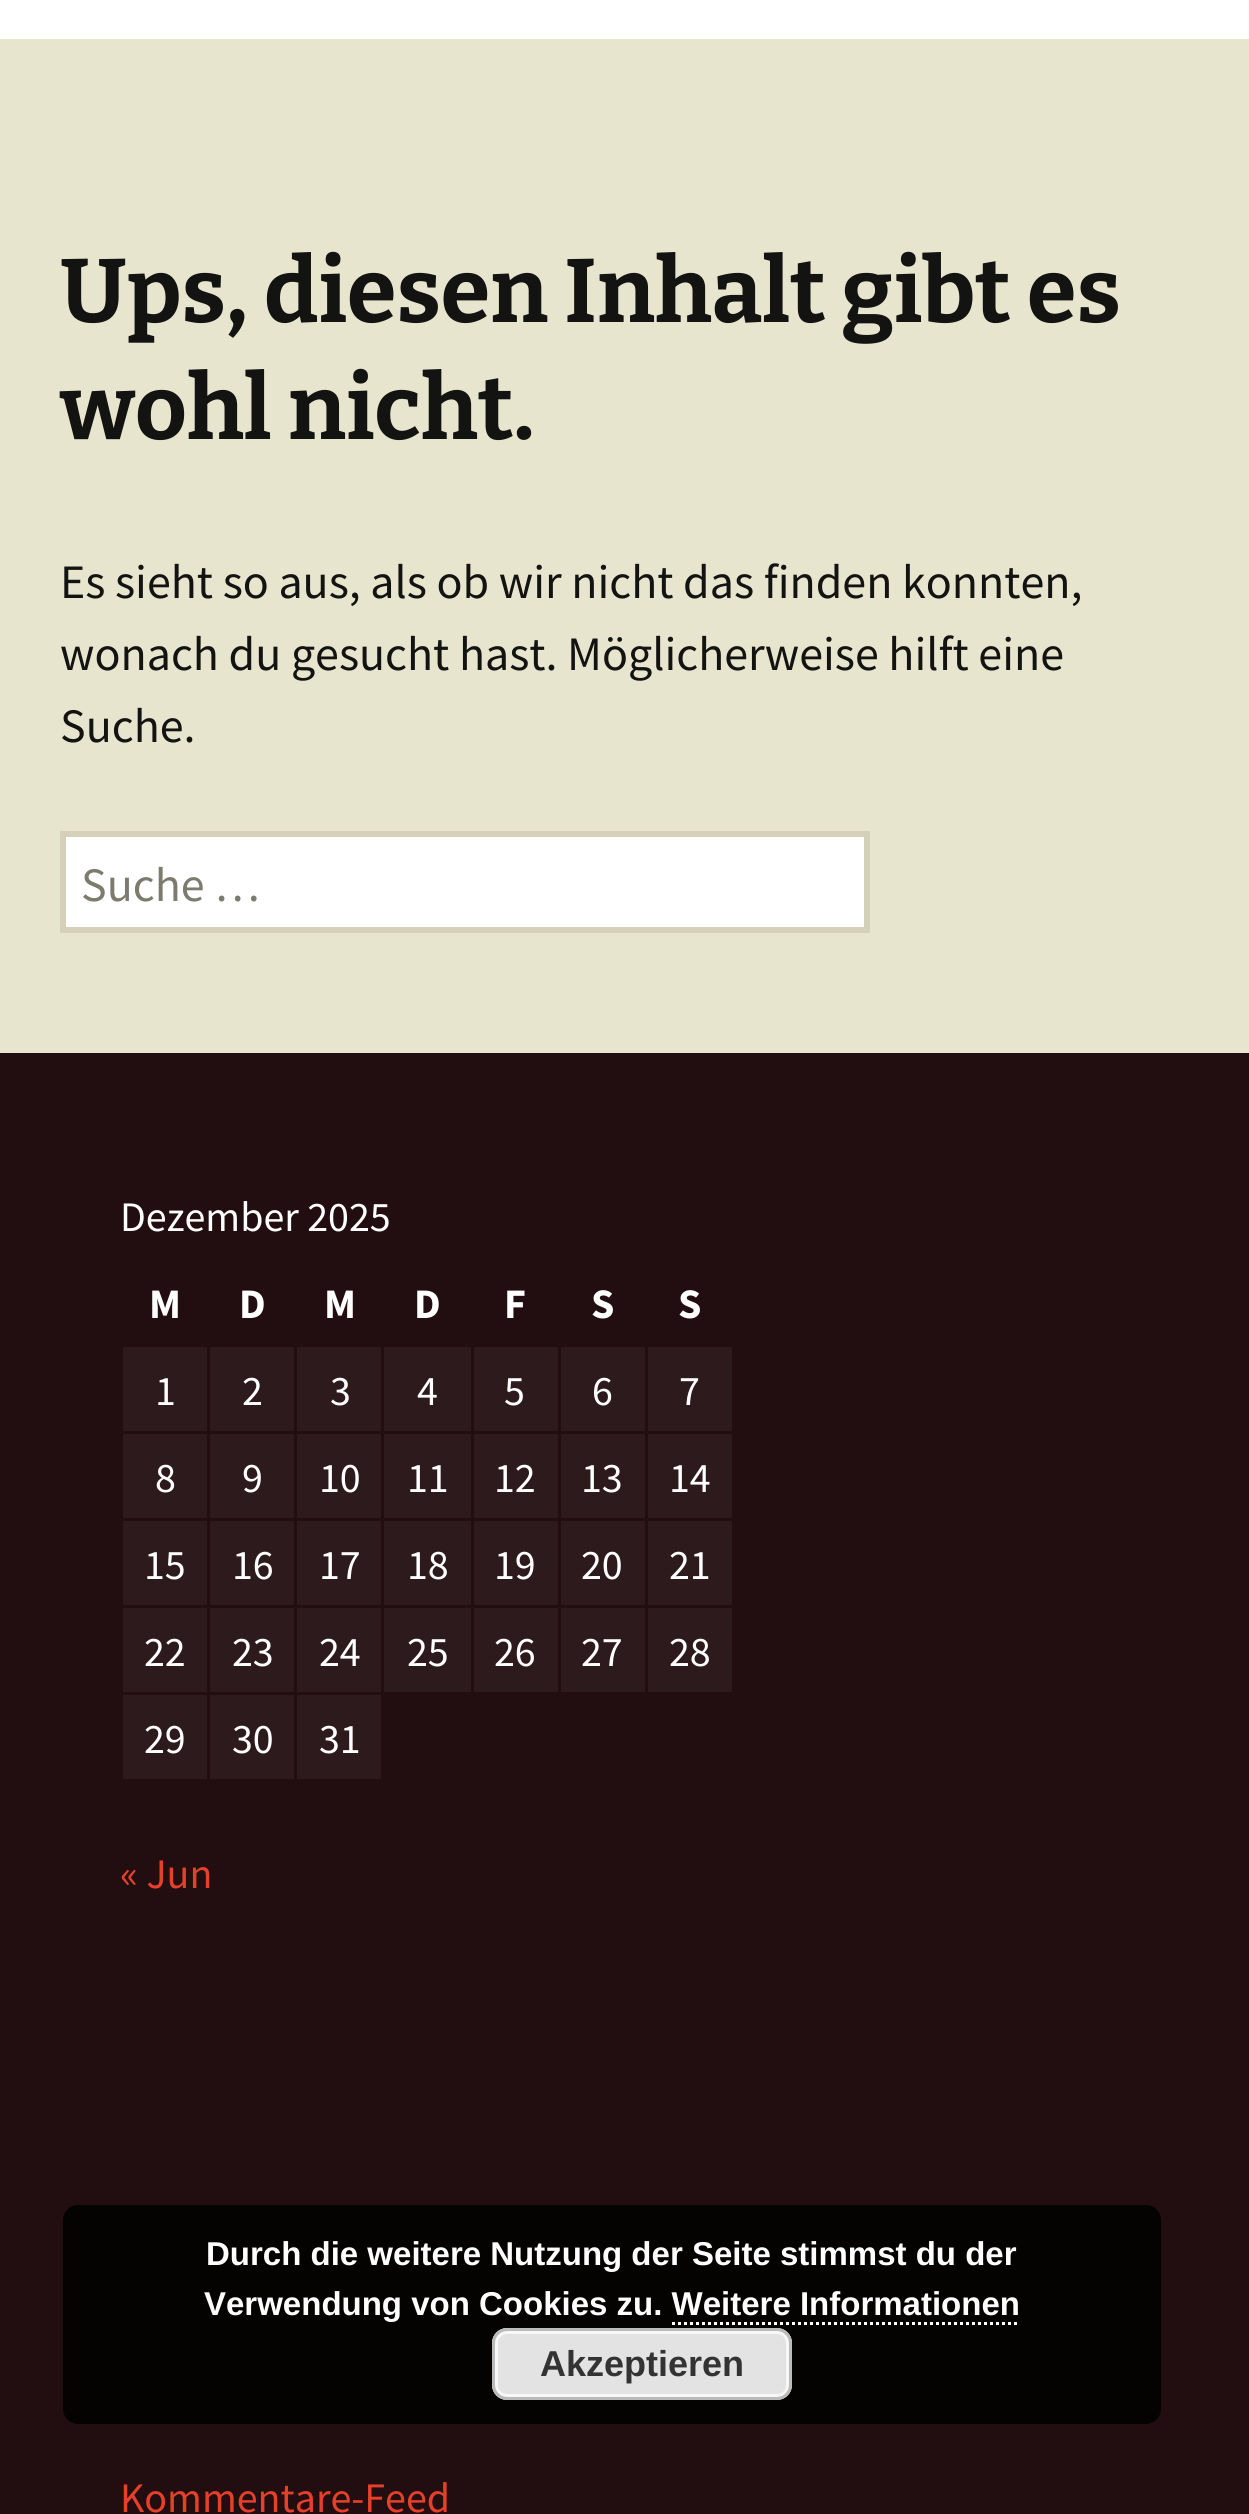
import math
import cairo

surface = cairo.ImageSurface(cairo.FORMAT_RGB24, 1249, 2514)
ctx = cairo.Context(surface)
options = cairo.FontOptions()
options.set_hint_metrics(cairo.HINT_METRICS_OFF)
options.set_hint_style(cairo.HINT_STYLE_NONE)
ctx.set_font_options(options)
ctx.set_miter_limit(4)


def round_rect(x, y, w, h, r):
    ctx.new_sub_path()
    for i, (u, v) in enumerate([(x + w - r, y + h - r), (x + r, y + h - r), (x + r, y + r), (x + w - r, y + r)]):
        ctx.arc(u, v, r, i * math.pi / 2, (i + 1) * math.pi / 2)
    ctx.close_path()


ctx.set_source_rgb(1, 1, 1)
ctx.paint()
ctx.set_source_rgb(0.91, 0.898, 0.808)
ctx.rectangle(0, 39, 1249, 1014)
ctx.fill()
ctx.select_font_face("Bitter", cairo.FONT_SLANT_NORMAL, cairo.FONT_WEIGHT_BOLD)
ctx.set_font_size(90)
ctx.set_source_rgb(0.078, 0.078, 0.071)
ctx.move_to(60, 322)
ctx.show_text("Ups, diesen Inhalt gibt es")
ctx.move_to(60, 439)
ctx.show_text("wohl nicht.")
ctx.select_font_face("Source Sans Pro")
ctx.set_font_size(48)
ctx.move_to(60, 598)
ctx.show_text("Es sieht so aus, als ob wir nicht das finden konnten,")
ctx.move_to(60, 670)
ctx.show_text("wonach du gesucht hast. Möglicherweise hilft eine")
ctx.move_to(60, 742)
ctx.show_text("Suche.")
ctx.set_source_rgb(1, 1, 1)
ctx.rectangle(63, 834, 804, 96)
ctx.fill_preserve()
ctx.set_source_rgb(0.831, 0.816, 0.729)
ctx.set_line_width(6)
ctx.stroke()
ctx.set_source_rgb(0.49, 0.482, 0.427)
ctx.move_to(81, 901)
ctx.show_text("Suche …")
ctx.set_source_rgb(0.133, 0.055, 0.063)
ctx.rectangle(0, 1053, 1249, 1461)
ctx.fill()
ctx.set_font_size(42)
ctx.set_source_rgb(1, 1, 1)
ctx.move_to(120, 1231)
ctx.show_text("Dezember 2025")
ctx.select_font_face("Source Sans Pro", cairo.FONT_SLANT_NORMAL, cairo.FONT_WEIGHT_BOLD)
ctx.move_to(149, 1318)
ctx.show_text("M")
ctx.move_to(239, 1318)
ctx.show_text("D")
ctx.move_to(324, 1318)
ctx.show_text("M")
ctx.move_to(414, 1318)
ctx.show_text("D")
ctx.move_to(504, 1318)
ctx.show_text("F")
ctx.move_to(591, 1318)
ctx.show_text("S")
ctx.move_to(678, 1318)
ctx.show_text("S")
ctx.set_source_rgb(0.176, 0.102, 0.11)
ctx.rectangle(123, 1347, 84, 84)
ctx.fill()
ctx.select_font_face("Source Sans Pro")
ctx.set_source_rgb(1, 1, 1)
ctx.move_to(155, 1405)
ctx.show_text("1")
ctx.set_source_rgb(0.176, 0.102, 0.11)
ctx.rectangle(210, 1347, 84, 84)
ctx.fill()
ctx.set_source_rgb(1, 1, 1)
ctx.move_to(242, 1405)
ctx.show_text("2")
ctx.set_source_rgb(0.176, 0.102, 0.11)
ctx.rectangle(297, 1347, 84, 84)
ctx.fill()
ctx.set_source_rgb(1, 1, 1)
ctx.move_to(330, 1405)
ctx.show_text("3")
ctx.set_source_rgb(0.176, 0.102, 0.11)
ctx.rectangle(384, 1347, 87, 84)
ctx.fill()
ctx.set_source_rgb(1, 1, 1)
ctx.move_to(417, 1405)
ctx.show_text("4")
ctx.set_source_rgb(0.176, 0.102, 0.11)
ctx.rectangle(474, 1347, 84, 84)
ctx.fill()
ctx.set_source_rgb(1, 1, 1)
ctx.move_to(504, 1405)
ctx.show_text("5")
ctx.set_source_rgb(0.176, 0.102, 0.11)
ctx.rectangle(561, 1347, 84, 84)
ctx.fill()
ctx.set_source_rgb(1, 1, 1)
ctx.move_to(592, 1405)
ctx.show_text("6")
ctx.set_source_rgb(0.176, 0.102, 0.11)
ctx.rectangle(648, 1347, 84, 84)
ctx.fill()
ctx.set_source_rgb(1, 1, 1)
ctx.move_to(679, 1405)
ctx.show_text("7")
ctx.set_source_rgb(0.176, 0.102, 0.11)
ctx.rectangle(123, 1434, 84, 84)
ctx.fill()
ctx.set_source_rgb(1, 1, 1)
ctx.move_to(155, 1492)
ctx.show_text("8")
ctx.set_source_rgb(0.176, 0.102, 0.11)
ctx.rectangle(210, 1434, 84, 84)
ctx.fill()
ctx.set_source_rgb(1, 1, 1)
ctx.move_to(242, 1492)
ctx.show_text("9")
ctx.set_source_rgb(0.176, 0.102, 0.11)
ctx.rectangle(297, 1434, 84, 84)
ctx.fill()
ctx.set_source_rgb(1, 1, 1)
ctx.move_to(319, 1492)
ctx.show_text("10")
ctx.set_source_rgb(0.176, 0.102, 0.11)
ctx.rectangle(384, 1434, 87, 84)
ctx.fill()
ctx.set_source_rgb(1, 1, 1)
ctx.move_to(407, 1492)
ctx.show_text("11")
ctx.set_source_rgb(0.176, 0.102, 0.11)
ctx.rectangle(474, 1434, 84, 84)
ctx.fill()
ctx.set_source_rgb(1, 1, 1)
ctx.move_to(494, 1492)
ctx.show_text("12")
ctx.set_source_rgb(0.176, 0.102, 0.11)
ctx.rectangle(561, 1434, 84, 84)
ctx.fill()
ctx.set_source_rgb(1, 1, 1)
ctx.move_to(581, 1492)
ctx.show_text("13")
ctx.set_source_rgb(0.176, 0.102, 0.11)
ctx.rectangle(648, 1434, 84, 84)
ctx.fill()
ctx.set_source_rgb(1, 1, 1)
ctx.move_to(669, 1492)
ctx.show_text("14")
ctx.set_source_rgb(0.176, 0.102, 0.11)
ctx.rectangle(123, 1521, 84, 84)
ctx.fill()
ctx.set_source_rgb(1, 1, 1)
ctx.move_to(144, 1579)
ctx.show_text("15")
ctx.set_source_rgb(0.176, 0.102, 0.11)
ctx.rectangle(210, 1521, 84, 84)
ctx.fill()
ctx.set_source_rgb(1, 1, 1)
ctx.move_to(232, 1579)
ctx.show_text("16")
ctx.set_source_rgb(0.176, 0.102, 0.11)
ctx.rectangle(297, 1521, 84, 84)
ctx.fill()
ctx.set_source_rgb(1, 1, 1)
ctx.move_to(319, 1579)
ctx.show_text("17")
ctx.set_source_rgb(0.176, 0.102, 0.11)
ctx.rectangle(384, 1521, 87, 84)
ctx.fill()
ctx.set_source_rgb(1, 1, 1)
ctx.move_to(407, 1579)
ctx.show_text("18")
ctx.set_source_rgb(0.176, 0.102, 0.11)
ctx.rectangle(474, 1521, 84, 84)
ctx.fill()
ctx.set_source_rgb(1, 1, 1)
ctx.move_to(494, 1579)
ctx.show_text("19")
ctx.set_source_rgb(0.176, 0.102, 0.11)
ctx.rectangle(561, 1521, 84, 84)
ctx.fill()
ctx.set_source_rgb(1, 1, 1)
ctx.move_to(581, 1579)
ctx.show_text("20")
ctx.set_source_rgb(0.176, 0.102, 0.11)
ctx.rectangle(648, 1521, 84, 84)
ctx.fill()
ctx.set_source_rgb(1, 1, 1)
ctx.move_to(669, 1579)
ctx.show_text("21")
ctx.set_source_rgb(0.176, 0.102, 0.11)
ctx.rectangle(123, 1608, 84, 84)
ctx.fill()
ctx.set_source_rgb(1, 1, 1)
ctx.move_to(144, 1666)
ctx.show_text("22")
ctx.set_source_rgb(0.176, 0.102, 0.11)
ctx.rectangle(210, 1608, 84, 84)
ctx.fill()
ctx.set_source_rgb(1, 1, 1)
ctx.move_to(232, 1666)
ctx.show_text("23")
ctx.set_source_rgb(0.176, 0.102, 0.11)
ctx.rectangle(297, 1608, 84, 84)
ctx.fill()
ctx.set_source_rgb(1, 1, 1)
ctx.move_to(319, 1666)
ctx.show_text("24")
ctx.set_source_rgb(0.176, 0.102, 0.11)
ctx.rectangle(384, 1608, 87, 84)
ctx.fill()
ctx.set_source_rgb(1, 1, 1)
ctx.move_to(407, 1666)
ctx.show_text("25")
ctx.set_source_rgb(0.176, 0.102, 0.11)
ctx.rectangle(474, 1608, 84, 84)
ctx.fill()
ctx.set_source_rgb(1, 1, 1)
ctx.move_to(494, 1666)
ctx.show_text("26")
ctx.set_source_rgb(0.176, 0.102, 0.11)
ctx.rectangle(561, 1608, 84, 84)
ctx.fill()
ctx.set_source_rgb(1, 1, 1)
ctx.move_to(581, 1666)
ctx.show_text("27")
ctx.set_source_rgb(0.176, 0.102, 0.11)
ctx.rectangle(648, 1608, 84, 84)
ctx.fill()
ctx.set_source_rgb(1, 1, 1)
ctx.move_to(669, 1666)
ctx.show_text("28")
ctx.set_source_rgb(0.176, 0.102, 0.11)
ctx.rectangle(123, 1695, 84, 84)
ctx.fill()
ctx.set_source_rgb(1, 1, 1)
ctx.move_to(144, 1753)
ctx.show_text("29")
ctx.set_source_rgb(0.176, 0.102, 0.11)
ctx.rectangle(210, 1695, 84, 84)
ctx.fill()
ctx.set_source_rgb(1, 1, 1)
ctx.move_to(232, 1753)
ctx.show_text("30")
ctx.set_source_rgb(0.176, 0.102, 0.11)
ctx.rectangle(297, 1695, 84, 84)
ctx.fill()
ctx.set_source_rgb(1, 1, 1)
ctx.move_to(319, 1753)
ctx.show_text("31")
ctx.set_source_rgb(0.902, 0.251, 0.165)
ctx.move_to(120, 1888)
ctx.show_text("« Jun")
ctx.move_to(120, 2512)
ctx.show_text("Kommentare-Feed")
ctx.set_source_rgba(0, 0, 0, 0.85)
round_rect(63, 2205, 1098, 219, 15)
ctx.fill()
ctx.select_font_face("Liberation Sans", cairo.FONT_SLANT_NORMAL, cairo.FONT_WEIGHT_BOLD)
ctx.set_font_size(33)
ctx.set_source_rgb(1, 1, 1)
ctx.move_to(206, 2265)
ctx.show_text("Durch die weitere Nutzung der Seite stimmst du der")
ctx.move_to(204, 2315)
ctx.show_text("Verwendung von Cookies zu. Weitere Informationen")
ctx.new_path()
ctx.move_to(672, 2323.5)
ctx.line_to(1020, 2323.5)
ctx.set_line_width(3)
ctx.set_dash([3, 3])
ctx.stroke()
ctx.set_source_rgb(0.89, 0.89, 0.89)
round_rect(492, 2328, 300, 72, 15)
ctx.fill()
round_rect(496.5, 2332.5, 291, 63, 10.5)
ctx.set_source_rgb(0.965, 0.965, 0.965)
ctx.set_dash([])
ctx.stroke()
round_rect(493.5, 2329.5, 297, 69, 13.5)
ctx.set_source_rgb(0.733, 0.733, 0.733)
ctx.stroke()
ctx.set_font_size(36)
ctx.set_source_rgb(0.2, 0.2, 0.2)
ctx.move_to(540, 2376)
ctx.show_text("Akzeptieren")
surface.write_to_png("page.png")
